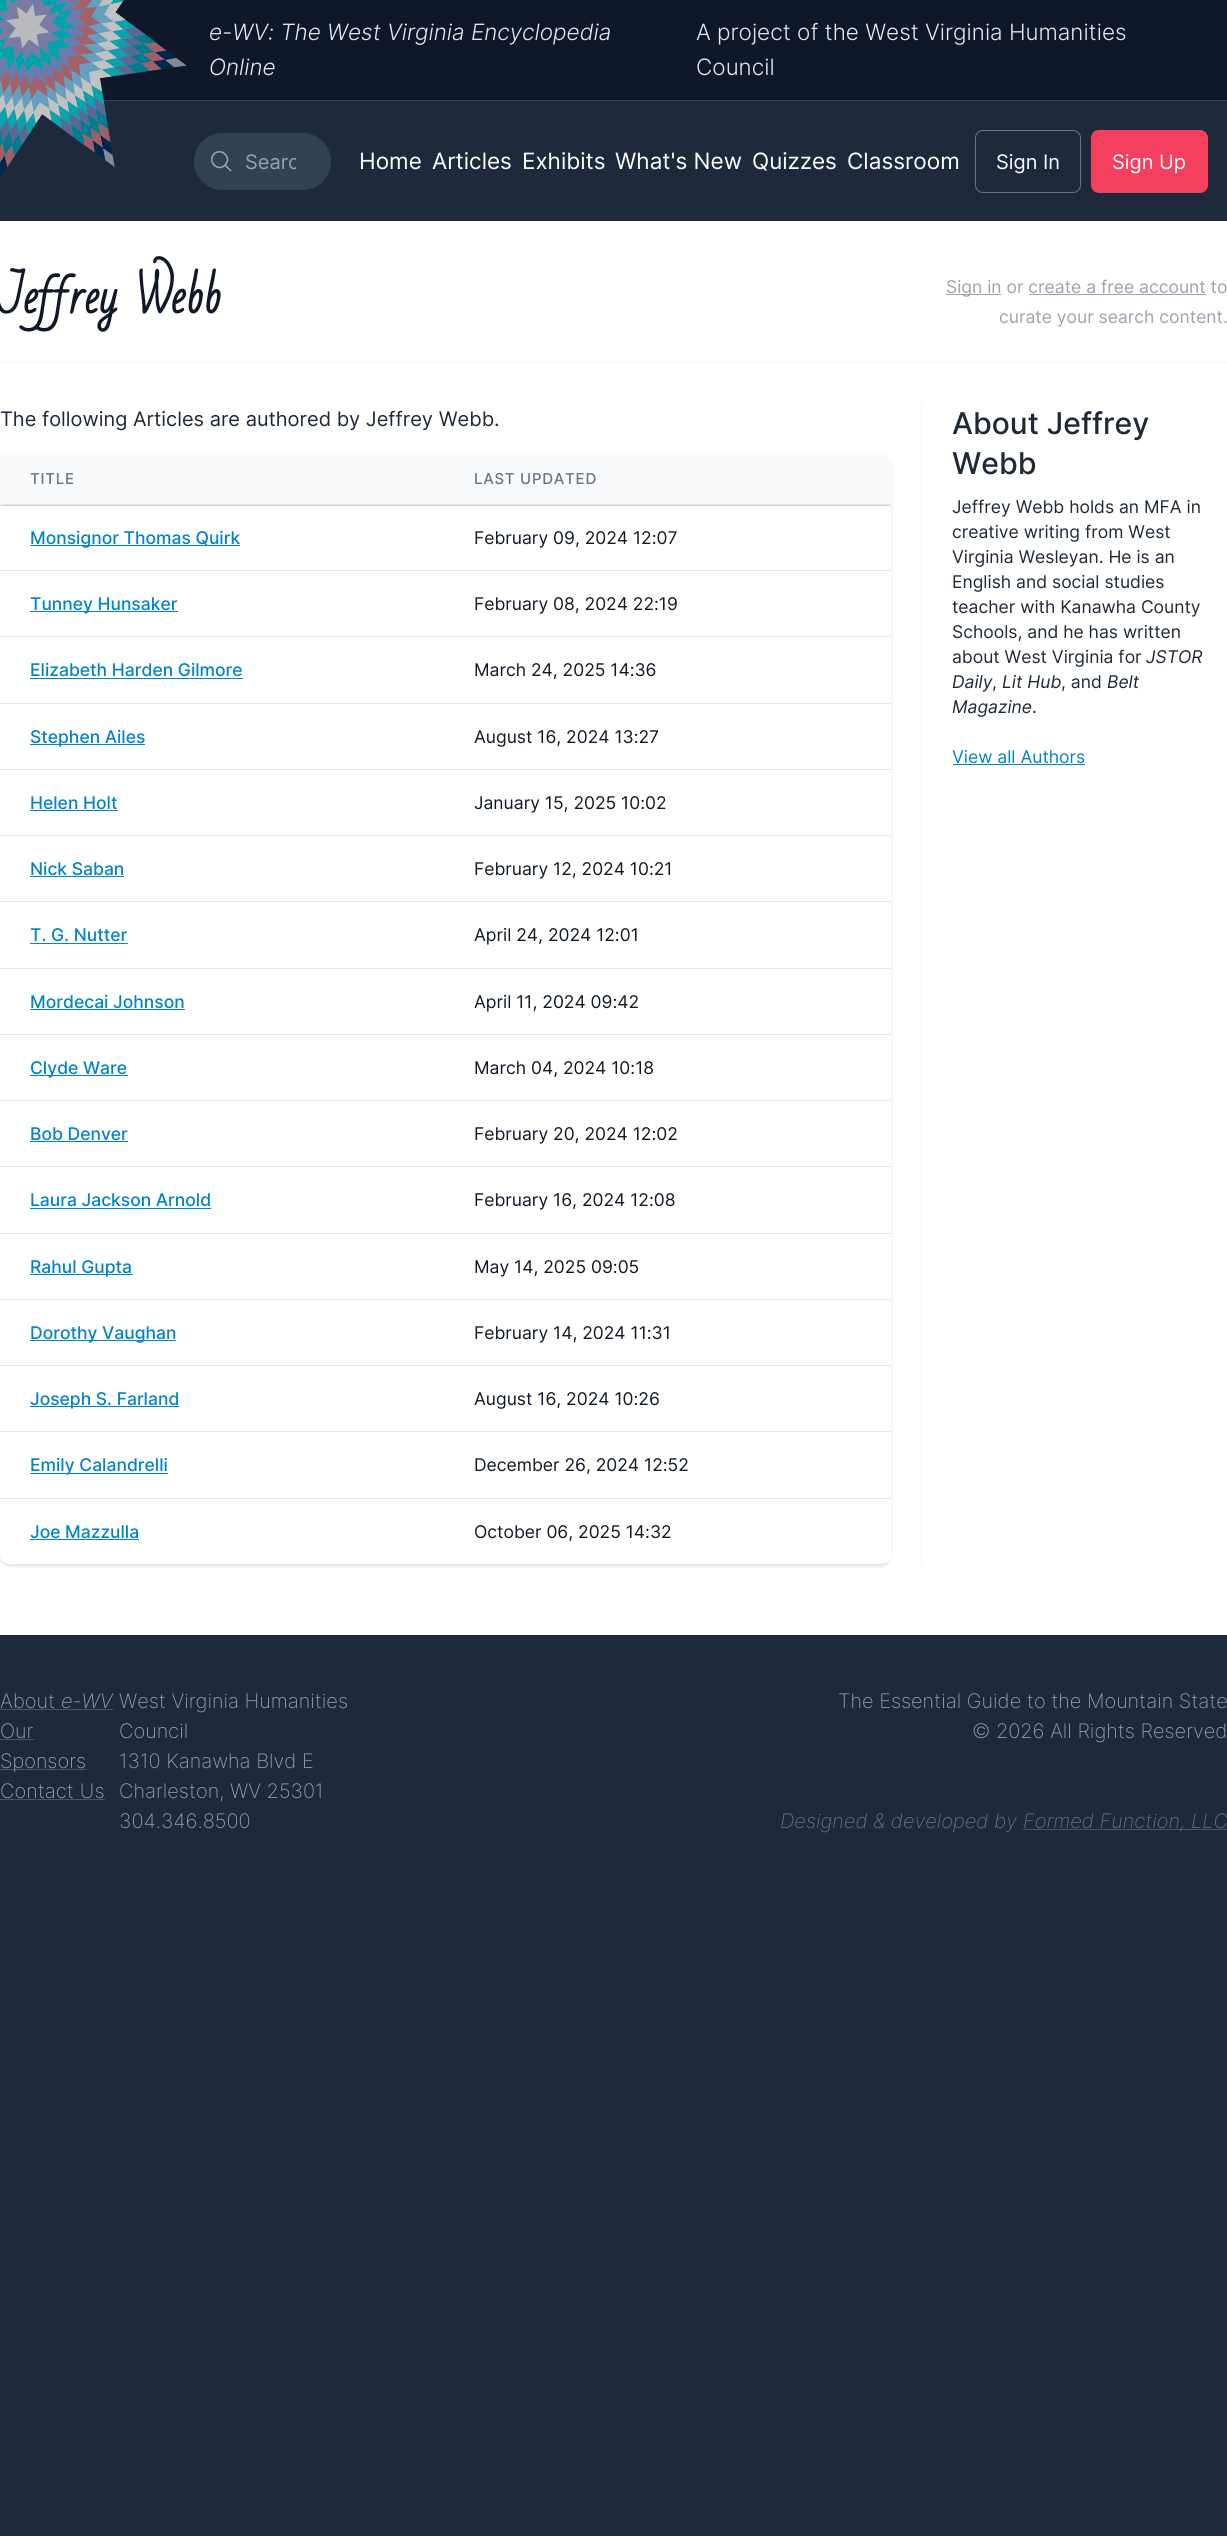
#include <cairo/cairo.h>
#include <math.h>
#include <stddef.h>


static void draw_spaced(cairo_t *cr, double x, double y, const char *s, double letter, double word) {
  cairo_move_to(cr, x, y);
  while (*s) {
    char ch[5] = {0};
    int n = 0;
    do ch[n++] = *s++; while ((*s & 0xC0) == 0x80);
    cairo_show_text(cr, ch);
    cairo_rel_move_to(cr, letter + word * (*ch == ' '), 0);
  }
}

static void rounded_rect(cairo_t *cr, double x, double y, double w, double h, double r) {
  cairo_new_sub_path(cr);
  cairo_arc(cr, x + w - r, y + h - r, r, 0, M_PI / 2);
  cairo_arc(cr, x + r, y + h - r, r, M_PI / 2, M_PI);
  cairo_arc(cr, x + r, y + r, r, M_PI, 1.5 * M_PI);
  cairo_arc(cr, x + w - r, y + r, r, 1.5 * M_PI, 2 * M_PI);
  cairo_close_path(cr);
}

static void draw_shadow(cairo_t *cr, double x, double y, double w, double h, double r, double blur, double alpha) {
  cairo_push_group_with_content(cr, CAIRO_CONTENT_ALPHA);
  cairo_set_operator(cr, CAIRO_OPERATOR_SOURCE);
  for (int i = 15; i >= -15 && fmin(w, h) + blur * i / 3 > 0; i -= 2) {
    double e = blur * i / 6;
    cairo_set_source_rgba(cr, 0, 0, 0, alpha * erfc((i - 1) / 8.5) / 2);
    rounded_rect(cr, x - e, y - e, w + 2 * e, h + 2 * e, fmax(0, fmin(r + e + blur * .6, fmin(w, h) / 2 + e)));
    cairo_fill(cr);
  }
  cairo_pattern_t *soft = cairo_pop_group(cr);
  cairo_mask(cr, soft);
  cairo_pattern_destroy(soft);
}

static void draw_image(cairo_t *cr, const char *path, double x, double y, double w, double h) {
  cairo_surface_t *image = cairo_image_surface_create_from_png(path);
  cairo_save(cr);
  cairo_set_source_surface(cr, image, x, y);
  cairo_rectangle(cr, x, y, w, h);
  cairo_fill(cr);
  cairo_restore(cr);
  cairo_surface_destroy(image);
}

static void draw(cairo_t *cr) {
  cairo_set_source_rgb(cr, 30 / 255.0, 41 / 255.0, 59 / 255.0);
  cairo_paint(cr);
  cairo_set_source_rgb(cr, 15 / 255.0, 23 / 255.0, 42 / 255.0);
  cairo_rectangle(cr, 100, 0, 1127, 100);
  cairo_fill(cr);
  cairo_set_source_rgb(cr, 51 / 255.0, 65 / 255.0, 85 / 255.0);
  cairo_rectangle(cr, 103, 100, 1124, 1);
  cairo_fill(cr);
  draw_image(cr, "images/1.png", 0, 0, 187, 178);
  rounded_rect(cr, 194.5, 133.5, 136, 56, 28);
  cairo_fill_preserve(cr);
  cairo_set_line_width(cr, 1);
  cairo_stroke(cr);
  cairo_new_path(cr);
  cairo_move_to(cr, 230.5, 170.5);
  cairo_line_to(cr, 225, 165);
  cairo_move_to(cr, 225, 165);
  cairo_curve_to(cr, 232.5, 158, 221.5, 147, 214, 154);
  cairo_curve_to(cr, 207, 161.5, 218, 172.5, 225, 165);
  cairo_close_path(cr);
  cairo_set_source_rgb(cr, 148 / 255.0, 163 / 255.0, 184 / 255.0);
  cairo_set_line_width(cr, 1.6);
  cairo_set_line_cap(cr, CAIRO_LINE_CAP_ROUND);
  cairo_set_line_join(cr, CAIRO_LINE_JOIN_ROUND);
  cairo_stroke(cr);
  rounded_rect(cr, 975.5, 130.5, 105, 62, 7.5);
  cairo_set_source_rgb(cr, 100 / 255.0, 116 / 255.0, 139 / 255.0);
  cairo_set_line_width(cr, 1);
  cairo_set_line_cap(cr, CAIRO_LINE_CAP_BUTT);
  cairo_set_line_join(cr, CAIRO_LINE_JOIN_MITER);
  cairo_stroke(cr);
  cairo_set_source_rgb(cr, 244 / 255.0, 63 / 255.0, 94 / 255.0);
  rounded_rect(cr, 1091, 130, 117, 63, 8);
  cairo_fill(cr);
  cairo_set_source_rgb(cr, 1, 1, 1);
  cairo_rectangle(cr, 0, 221, 1227, 1414);
  cairo_fill(cr);
  cairo_set_source_rgb(cr, 249 / 255.0, 250 / 255.0, 251 / 255.0);
  cairo_rectangle(cr, 0, 361, 1227, 3);
  cairo_fill(cr);
  cairo_set_source_rgb(cr, 156 / 255.0, 163 / 255.0, 175 / 255.0);
  cairo_rectangle(cr, 946, 294, 55, 1);
  cairo_fill(cr);
  cairo_rectangle(cr, 1029, 294, 177, 1);
  cairo_fill(cr);
  cairo_set_source_rgb(cr, 0, 0, 0);
  draw_shadow(cr, 1, 456, 889, 1109, 9, 1, 0.1);
  draw_shadow(cr, 0, 455, 891, 1111, 10, 2, 0.1);
  cairo_set_source_rgb(cr, 229 / 255.0, 231 / 255.0, 235 / 255.0);
  cairo_rectangle(cr, 5, 1564, 881, 1);
  cairo_fill(cr);
  cairo_set_source_rgb(cr, 249 / 255.0, 250 / 255.0, 251 / 255.0);
  cairo_new_path(cr);
  cairo_move_to(cr, 0, 464);
  cairo_line_to(cr, 0, 505);
  cairo_line_to(cr, 891, 505);
  cairo_line_to(cr, 891, 462);
  cairo_curve_to(cr, 890, 458, 887, 455, 883, 454);
  cairo_line_to(cr, 8, 454);
  cairo_curve_to(cr, 3, 455, 0, 459, 0, 464);
  cairo_close_path(cr);
  cairo_fill(cr);
  cairo_set_source_rgb(cr, 1, 1, 1);
  cairo_new_path(cr);
  cairo_move_to(cr, 0, 506);
  cairo_line_to(cr, 0, 1555);
  cairo_curve_to(cr, 0, 1560, 4, 1564, 10, 1564);
  cairo_line_to(cr, 881, 1564);
  cairo_curve_to(cr, 886, 1564, 890, 1561, 891, 1557);
  cairo_line_to(cr, 891, 506);
  cairo_close_path(cr);
  cairo_fill(cr);
  cairo_set_source_rgb(cr, 229 / 255.0, 231 / 255.0, 235 / 255.0);
  cairo_rectangle(cr, 0, 504, 891, 1);
  cairo_fill(cr);
  cairo_set_source_rgb(cr, 2 / 255.0, 132 / 255.0, 199 / 255.0);
  cairo_rectangle(cr, 30, 545, 210, 1);
  cairo_fill(cr);
  cairo_set_source_rgb(cr, 229 / 255.0, 231 / 255.0, 235 / 255.0);
  cairo_rectangle(cr, 0, 570, 891, 1);
  cairo_fill(cr);
  cairo_set_source_rgb(cr, 2 / 255.0, 132 / 255.0, 199 / 255.0);
  cairo_rectangle(cr, 30, 611, 148, 1);
  cairo_fill(cr);
  cairo_set_source_rgb(cr, 229 / 255.0, 231 / 255.0, 235 / 255.0);
  cairo_rectangle(cr, 0, 636, 891, 1);
  cairo_fill(cr);
  cairo_set_source_rgb(cr, 2 / 255.0, 132 / 255.0, 199 / 255.0);
  cairo_rectangle(cr, 30, 678, 213, 1);
  cairo_fill(cr);
  cairo_set_source_rgb(cr, 229 / 255.0, 231 / 255.0, 235 / 255.0);
  cairo_rectangle(cr, 0, 703, 891, 1);
  cairo_fill(cr);
  cairo_set_source_rgb(cr, 2 / 255.0, 132 / 255.0, 199 / 255.0);
  cairo_rectangle(cr, 30, 744, 115, 1);
  cairo_fill(cr);
  cairo_set_source_rgb(cr, 229 / 255.0, 231 / 255.0, 235 / 255.0);
  cairo_rectangle(cr, 0, 769, 891, 1);
  cairo_fill(cr);
  cairo_set_source_rgb(cr, 2 / 255.0, 132 / 255.0, 199 / 255.0);
  cairo_rectangle(cr, 30, 810, 88, 1);
  cairo_fill(cr);
  cairo_set_source_rgb(cr, 229 / 255.0, 231 / 255.0, 235 / 255.0);
  cairo_rectangle(cr, 0, 835, 891, 1);
  cairo_fill(cr);
  cairo_set_source_rgb(cr, 2 / 255.0, 132 / 255.0, 199 / 255.0);
  cairo_rectangle(cr, 30, 876, 94, 1);
  cairo_fill(cr);
  cairo_set_source_rgb(cr, 229 / 255.0, 231 / 255.0, 235 / 255.0);
  cairo_rectangle(cr, 0, 901, 891, 1);
  cairo_fill(cr);
  cairo_set_source_rgb(cr, 2 / 255.0, 132 / 255.0, 199 / 255.0);
  cairo_rectangle(cr, 30, 943, 98, 1);
  cairo_fill(cr);
  cairo_set_source_rgb(cr, 229 / 255.0, 231 / 255.0, 235 / 255.0);
  cairo_rectangle(cr, 0, 968, 891, 1);
  cairo_fill(cr);
  cairo_set_source_rgb(cr, 2 / 255.0, 132 / 255.0, 199 / 255.0);
  cairo_rectangle(cr, 30, 1009, 155, 1);
  cairo_fill(cr);
  cairo_set_source_rgb(cr, 229 / 255.0, 231 / 255.0, 235 / 255.0);
  cairo_rectangle(cr, 0, 1034, 891, 1);
  cairo_fill(cr);
  cairo_set_source_rgb(cr, 2 / 255.0, 132 / 255.0, 199 / 255.0);
  cairo_rectangle(cr, 30, 1075, 98, 1);
  cairo_fill(cr);
  cairo_set_source_rgb(cr, 229 / 255.0, 231 / 255.0, 235 / 255.0);
  cairo_rectangle(cr, 0, 1100, 891, 1);
  cairo_fill(cr);
  cairo_set_source_rgb(cr, 2 / 255.0, 132 / 255.0, 199 / 255.0);
  cairo_rectangle(cr, 30, 1141, 98, 1);
  cairo_fill(cr);
  cairo_set_source_rgb(cr, 229 / 255.0, 231 / 255.0, 235 / 255.0);
  cairo_rectangle(cr, 0, 1166, 891, 1);
  cairo_fill(cr);
  cairo_set_source_rgb(cr, 2 / 255.0, 132 / 255.0, 199 / 255.0);
  cairo_rectangle(cr, 30, 1208, 181, 1);
  cairo_fill(cr);
  cairo_set_source_rgb(cr, 229 / 255.0, 231 / 255.0, 235 / 255.0);
  cairo_rectangle(cr, 0, 1233, 891, 1);
  cairo_fill(cr);
  cairo_set_source_rgb(cr, 2 / 255.0, 132 / 255.0, 199 / 255.0);
  cairo_rectangle(cr, 30, 1274, 103, 1);
  cairo_fill(cr);
  cairo_set_source_rgb(cr, 229 / 255.0, 231 / 255.0, 235 / 255.0);
  cairo_rectangle(cr, 0, 1299, 891, 1);
  cairo_fill(cr);
  cairo_set_source_rgb(cr, 2 / 255.0, 132 / 255.0, 199 / 255.0);
  cairo_rectangle(cr, 30, 1340, 146, 1);
  cairo_fill(cr);
  cairo_set_source_rgb(cr, 229 / 255.0, 231 / 255.0, 235 / 255.0);
  cairo_rectangle(cr, 0, 1365, 891, 1);
  cairo_fill(cr);
  cairo_set_source_rgb(cr, 2 / 255.0, 132 / 255.0, 199 / 255.0);
  cairo_rectangle(cr, 30, 1406, 149, 1);
  cairo_fill(cr);
  cairo_set_source_rgb(cr, 229 / 255.0, 231 / 255.0, 235 / 255.0);
  cairo_rectangle(cr, 0, 1431, 891, 1);
  cairo_fill(cr);
  cairo_set_source_rgb(cr, 2 / 255.0, 132 / 255.0, 199 / 255.0);
  cairo_rectangle(cr, 30, 1473, 138, 1);
  cairo_fill(cr);
  cairo_set_source_rgb(cr, 229 / 255.0, 231 / 255.0, 235 / 255.0);
  cairo_rectangle(cr, 0, 1498, 891, 1);
  cairo_fill(cr);
  cairo_set_source_rgb(cr, 2 / 255.0, 132 / 255.0, 199 / 255.0);
  cairo_rectangle(cr, 30, 1539, 109, 1);
  cairo_fill(cr);
  cairo_set_source_rgb(cr, 243 / 255.0, 244 / 255.0, 246 / 255.0);
  cairo_rectangle(cr, 921, 404, 1, 1161);
  cairo_fill(cr);
  cairo_set_source_rgb(cr, 2 / 255.0, 132 / 255.0, 199 / 255.0);
  cairo_rectangle(cr, 953, 764, 132, 1);
  cairo_fill(cr);
  cairo_set_source_rgb(cr, 71 / 255.0, 85 / 255.0, 105 / 255.0);
  cairo_rectangle(cr, 0, 1709, 113, 1);
  cairo_fill(cr);
  cairo_rectangle(cr, 0, 1739, 34, 1);
  cairo_fill(cr);
  cairo_rectangle(cr, 0, 1769, 86, 1);
  cairo_fill(cr);
  cairo_rectangle(cr, 0, 1799, 105, 1);
  cairo_fill(cr);
  cairo_rectangle(cr, 1023, 1829, 204, 1);
  cairo_fill(cr);
  cairo_select_font_face(cr, "Inter Light", CAIRO_FONT_SLANT_ITALIC, CAIRO_FONT_WEIGHT_NORMAL);
  cairo_set_font_size(cr, 22.5);
  cairo_set_source_rgb(cr, 229 / 255.0, 231 / 255.0, 235 / 255.0);
  cairo_move_to(cr, 209, 40);
  cairo_show_text(cr, "e-WV: The West Virginia Encyclopedia");
  cairo_move_to(cr, 209, 75);
  cairo_show_text(cr, "Online");
  cairo_select_font_face(cr, "Inter Light", CAIRO_FONT_SLANT_NORMAL, CAIRO_FONT_WEIGHT_NORMAL);
  cairo_move_to(cr, 696, 40);
  cairo_show_text(cr, "A project of the West Virginia Humanities");
  cairo_move_to(cr, 696, 75);
  cairo_show_text(cr, "Council");
  cairo_save(cr);
  cairo_rectangle(cr, 245, 149, 51, 25);
  cairo_clip(cr);
  cairo_select_font_face(cr, "Inter", CAIRO_FONT_SLANT_NORMAL, CAIRO_FONT_WEIGHT_NORMAL);
  cairo_set_font_size(cr, 20);
  cairo_set_source_rgb(cr, 148 / 255.0, 163 / 255.0, 184 / 255.0);
  cairo_move_to(cr, 245, 169);
  cairo_show_text(cr, "Searc");
  cairo_restore(cr);
  cairo_select_font_face(cr, "Inter", CAIRO_FONT_SLANT_NORMAL, CAIRO_FONT_WEIGHT_NORMAL);
  cairo_set_source_rgb(cr, 1, 1, 1);
  cairo_move_to(cr, 359, 169);
  cairo_show_text(cr, "Home");
  cairo_move_to(cr, 432, 169);
  cairo_show_text(cr, "Articles");
  cairo_move_to(cr, 522, 169);
  cairo_show_text(cr, "Exhibits");
  cairo_move_to(cr, 615, 169);
  cairo_show_text(cr, "What's New");
  cairo_move_to(cr, 752, 169);
  cairo_show_text(cr, "Quizzes");
  cairo_move_to(cr, 847, 169);
  cairo_show_text(cr, "Classroom");
  cairo_set_font_size(cr, 20);
  cairo_move_to(cr, 996, 169);
  cairo_show_text(cr, "Sign In");
  cairo_move_to(cr, 1112, 169);
  cairo_show_text(cr, "Sign Up");
  cairo_select_font_face(cr, "Bad Script", CAIRO_FONT_SLANT_NORMAL, CAIRO_FONT_WEIGHT_BOLD);
  cairo_set_font_size(cr, 45);
  cairo_set_source_rgb(cr, 17 / 255.0, 24 / 255.0, 39 / 255.0);
  cairo_move_to(cr, 0, 313);
  cairo_show_text(cr, "Jeffrey Webb");
  cairo_select_font_face(cr, "Inter", CAIRO_FONT_SLANT_NORMAL, CAIRO_FONT_WEIGHT_NORMAL);
  cairo_set_font_size(cr, 17.5);
  cairo_set_source_rgb(cr, 156 / 255.0, 163 / 255.0, 175 / 255.0);
  cairo_move_to(cr, 946, 293);
  cairo_show_text(cr, "Sign in or create a free account to");
  cairo_move_to(cr, 999, 323);
  cairo_show_text(cr, "curate your search content.");
  cairo_set_font_size(cr, 20);
  cairo_set_source_rgb(cr, 31 / 255.0, 41 / 255.0, 55 / 255.0);
  cairo_move_to(cr, 0, 426);
  cairo_show_text(cr, "The following Articles are authored by Jeffrey Webb.");
  cairo_select_font_face(cr, "Inter Medium", CAIRO_FONT_SLANT_NORMAL, CAIRO_FONT_WEIGHT_NORMAL);
  cairo_set_font_size(cr, 15);
  cairo_set_source_rgb(cr, 107 / 255.0, 114 / 255.0, 128 / 255.0);
  draw_spaced(cr, 30, 484, "TITLE", 0.75, 0);
  draw_spaced(cr, 474, 484, "LAST UPDATED", 0.75, 0);
  cairo_set_font_size(cr, 17.5);
  cairo_set_source_rgb(cr, 2 / 255.0, 132 / 255.0, 199 / 255.0);
  cairo_move_to(cr, 30, 544);
  cairo_show_text(cr, "Monsignor Thomas Quirk");
  cairo_select_font_face(cr, "Inter", CAIRO_FONT_SLANT_NORMAL, CAIRO_FONT_WEIGHT_NORMAL);
  cairo_set_source_rgb(cr, 17 / 255.0, 24 / 255.0, 39 / 255.0);
  cairo_move_to(cr, 474, 544);
  cairo_show_text(cr, "February 09, 2024 12:07");
  cairo_select_font_face(cr, "Inter Medium", CAIRO_FONT_SLANT_NORMAL, CAIRO_FONT_WEIGHT_NORMAL);
  cairo_set_source_rgb(cr, 2 / 255.0, 132 / 255.0, 199 / 255.0);
  cairo_move_to(cr, 30, 610);
  cairo_show_text(cr, "Tunney Hunsaker");
  cairo_select_font_face(cr, "Inter", CAIRO_FONT_SLANT_NORMAL, CAIRO_FONT_WEIGHT_NORMAL);
  cairo_set_source_rgb(cr, 17 / 255.0, 24 / 255.0, 39 / 255.0);
  cairo_move_to(cr, 474, 610);
  cairo_show_text(cr, "February 08, 2024 22:19");
  cairo_select_font_face(cr, "Inter Medium", CAIRO_FONT_SLANT_NORMAL, CAIRO_FONT_WEIGHT_NORMAL);
  cairo_set_source_rgb(cr, 2 / 255.0, 132 / 255.0, 199 / 255.0);
  cairo_move_to(cr, 30, 676);
  cairo_show_text(cr, "Elizabeth Harden Gilmore");
  cairo_select_font_face(cr, "Inter", CAIRO_FONT_SLANT_NORMAL, CAIRO_FONT_WEIGHT_NORMAL);
  cairo_set_source_rgb(cr, 17 / 255.0, 24 / 255.0, 39 / 255.0);
  cairo_move_to(cr, 474, 676);
  cairo_show_text(cr, "March 24, 2025 14:36");
  cairo_select_font_face(cr, "Inter Medium", CAIRO_FONT_SLANT_NORMAL, CAIRO_FONT_WEIGHT_NORMAL);
  cairo_set_source_rgb(cr, 2 / 255.0, 132 / 255.0, 199 / 255.0);
  cairo_move_to(cr, 30, 743);
  cairo_show_text(cr, "Stephen Ailes");
  cairo_select_font_face(cr, "Inter", CAIRO_FONT_SLANT_NORMAL, CAIRO_FONT_WEIGHT_NORMAL);
  cairo_set_source_rgb(cr, 17 / 255.0, 24 / 255.0, 39 / 255.0);
  cairo_move_to(cr, 474, 743);
  cairo_show_text(cr, "August 16, 2024 13:27");
  cairo_select_font_face(cr, "Inter Medium", CAIRO_FONT_SLANT_NORMAL, CAIRO_FONT_WEIGHT_NORMAL);
  cairo_set_source_rgb(cr, 2 / 255.0, 132 / 255.0, 199 / 255.0);
  cairo_move_to(cr, 30, 809);
  cairo_show_text(cr, "Helen Holt");
  cairo_select_font_face(cr, "Inter", CAIRO_FONT_SLANT_NORMAL, CAIRO_FONT_WEIGHT_NORMAL);
  cairo_set_source_rgb(cr, 17 / 255.0, 24 / 255.0, 39 / 255.0);
  cairo_move_to(cr, 474, 809);
  cairo_show_text(cr, "January 15, 2025 10:02");
  cairo_select_font_face(cr, "Inter Medium", CAIRO_FONT_SLANT_NORMAL, CAIRO_FONT_WEIGHT_NORMAL);
  cairo_set_source_rgb(cr, 2 / 255.0, 132 / 255.0, 199 / 255.0);
  cairo_move_to(cr, 30, 875);
  cairo_show_text(cr, "Nick Saban");
  cairo_select_font_face(cr, "Inter", CAIRO_FONT_SLANT_NORMAL, CAIRO_FONT_WEIGHT_NORMAL);
  cairo_set_source_rgb(cr, 17 / 255.0, 24 / 255.0, 39 / 255.0);
  cairo_move_to(cr, 474, 875);
  cairo_show_text(cr, "February 12, 2024 10:21");
  cairo_select_font_face(cr, "Inter Medium", CAIRO_FONT_SLANT_NORMAL, CAIRO_FONT_WEIGHT_NORMAL);
  cairo_set_source_rgb(cr, 2 / 255.0, 132 / 255.0, 199 / 255.0);
  cairo_move_to(cr, 30, 941);
  cairo_show_text(cr, "T. G. Nutter");
  cairo_select_font_face(cr, "Inter", CAIRO_FONT_SLANT_NORMAL, CAIRO_FONT_WEIGHT_NORMAL);
  cairo_set_source_rgb(cr, 17 / 255.0, 24 / 255.0, 39 / 255.0);
  cairo_move_to(cr, 474, 941);
  cairo_show_text(cr, "April 24, 2024 12:01");
  cairo_select_font_face(cr, "Inter Medium", CAIRO_FONT_SLANT_NORMAL, CAIRO_FONT_WEIGHT_NORMAL);
  cairo_set_source_rgb(cr, 2 / 255.0, 132 / 255.0, 199 / 255.0);
  cairo_move_to(cr, 30, 1008);
  cairo_show_text(cr, "Mordecai Johnson");
  cairo_select_font_face(cr, "Inter", CAIRO_FONT_SLANT_NORMAL, CAIRO_FONT_WEIGHT_NORMAL);
  cairo_set_source_rgb(cr, 17 / 255.0, 24 / 255.0, 39 / 255.0);
  cairo_move_to(cr, 474, 1008);
  cairo_show_text(cr, "April 11, 2024 09:42");
  cairo_select_font_face(cr, "Inter Medium", CAIRO_FONT_SLANT_NORMAL, CAIRO_FONT_WEIGHT_NORMAL);
  cairo_set_source_rgb(cr, 2 / 255.0, 132 / 255.0, 199 / 255.0);
  cairo_move_to(cr, 30, 1074);
  cairo_show_text(cr, "Clyde Ware");
  cairo_select_font_face(cr, "Inter", CAIRO_FONT_SLANT_NORMAL, CAIRO_FONT_WEIGHT_NORMAL);
  cairo_set_source_rgb(cr, 17 / 255.0, 24 / 255.0, 39 / 255.0);
  cairo_move_to(cr, 474, 1074);
  cairo_show_text(cr, "March 04, 2024 10:18");
  cairo_select_font_face(cr, "Inter Medium", CAIRO_FONT_SLANT_NORMAL, CAIRO_FONT_WEIGHT_NORMAL);
  cairo_set_source_rgb(cr, 2 / 255.0, 132 / 255.0, 199 / 255.0);
  cairo_move_to(cr, 30, 1140);
  cairo_show_text(cr, "Bob Denver");
  cairo_select_font_face(cr, "Inter", CAIRO_FONT_SLANT_NORMAL, CAIRO_FONT_WEIGHT_NORMAL);
  cairo_set_source_rgb(cr, 17 / 255.0, 24 / 255.0, 39 / 255.0);
  cairo_move_to(cr, 474, 1140);
  cairo_show_text(cr, "February 20, 2024 12:02");
  cairo_select_font_face(cr, "Inter Medium", CAIRO_FONT_SLANT_NORMAL, CAIRO_FONT_WEIGHT_NORMAL);
  cairo_set_source_rgb(cr, 2 / 255.0, 132 / 255.0, 199 / 255.0);
  cairo_move_to(cr, 30, 1206);
  cairo_show_text(cr, "Laura Jackson Arnold");
  cairo_select_font_face(cr, "Inter", CAIRO_FONT_SLANT_NORMAL, CAIRO_FONT_WEIGHT_NORMAL);
  cairo_set_source_rgb(cr, 17 / 255.0, 24 / 255.0, 39 / 255.0);
  cairo_move_to(cr, 474, 1206);
  cairo_show_text(cr, "February 16, 2024 12:08");
  cairo_select_font_face(cr, "Inter Medium", CAIRO_FONT_SLANT_NORMAL, CAIRO_FONT_WEIGHT_NORMAL);
  cairo_set_source_rgb(cr, 2 / 255.0, 132 / 255.0, 199 / 255.0);
  cairo_move_to(cr, 30, 1273);
  cairo_show_text(cr, "Rahul Gupta");
  cairo_select_font_face(cr, "Inter", CAIRO_FONT_SLANT_NORMAL, CAIRO_FONT_WEIGHT_NORMAL);
  cairo_set_source_rgb(cr, 17 / 255.0, 24 / 255.0, 39 / 255.0);
  cairo_move_to(cr, 474, 1273);
  cairo_show_text(cr, "May 14, 2025 09:05");
  cairo_select_font_face(cr, "Inter Medium", CAIRO_FONT_SLANT_NORMAL, CAIRO_FONT_WEIGHT_NORMAL);
  cairo_set_source_rgb(cr, 2 / 255.0, 132 / 255.0, 199 / 255.0);
  cairo_move_to(cr, 30, 1339);
  cairo_show_text(cr, "Dorothy Vaughan");
  cairo_select_font_face(cr, "Inter", CAIRO_FONT_SLANT_NORMAL, CAIRO_FONT_WEIGHT_NORMAL);
  cairo_set_source_rgb(cr, 17 / 255.0, 24 / 255.0, 39 / 255.0);
  cairo_move_to(cr, 474, 1339);
  cairo_show_text(cr, "February 14, 2024 11:31");
  cairo_select_font_face(cr, "Inter Medium", CAIRO_FONT_SLANT_NORMAL, CAIRO_FONT_WEIGHT_NORMAL);
  cairo_set_source_rgb(cr, 2 / 255.0, 132 / 255.0, 199 / 255.0);
  cairo_move_to(cr, 30, 1405);
  cairo_show_text(cr, "Joseph S. Farland");
  cairo_select_font_face(cr, "Inter", CAIRO_FONT_SLANT_NORMAL, CAIRO_FONT_WEIGHT_NORMAL);
  cairo_set_source_rgb(cr, 17 / 255.0, 24 / 255.0, 39 / 255.0);
  cairo_move_to(cr, 474, 1405);
  cairo_show_text(cr, "August 16, 2024 10:26");
  cairo_select_font_face(cr, "Inter Medium", CAIRO_FONT_SLANT_NORMAL, CAIRO_FONT_WEIGHT_NORMAL);
  cairo_set_source_rgb(cr, 2 / 255.0, 132 / 255.0, 199 / 255.0);
  cairo_move_to(cr, 30, 1471);
  cairo_show_text(cr, "Emily Calandrelli");
  cairo_select_font_face(cr, "Inter", CAIRO_FONT_SLANT_NORMAL, CAIRO_FONT_WEIGHT_NORMAL);
  cairo_set_source_rgb(cr, 17 / 255.0, 24 / 255.0, 39 / 255.0);
  cairo_move_to(cr, 474, 1471);
  cairo_show_text(cr, "December 26, 2024 12:52");
  cairo_select_font_face(cr, "Inter Medium", CAIRO_FONT_SLANT_NORMAL, CAIRO_FONT_WEIGHT_NORMAL);
  cairo_set_source_rgb(cr, 2 / 255.0, 132 / 255.0, 199 / 255.0);
  cairo_move_to(cr, 30, 1538);
  cairo_show_text(cr, "Joe Mazzulla");
  cairo_select_font_face(cr, "Inter", CAIRO_FONT_SLANT_NORMAL, CAIRO_FONT_WEIGHT_NORMAL);
  cairo_set_source_rgb(cr, 17 / 255.0, 24 / 255.0, 39 / 255.0);
  cairo_move_to(cr, 474, 1538);
  cairo_show_text(cr, "October 06, 2025 14:32");
  cairo_select_font_face(cr, "Inter Medium", CAIRO_FONT_SLANT_NORMAL, CAIRO_FONT_WEIGHT_NORMAL);
  cairo_set_font_size(cr, 30);
  cairo_set_source_rgb(cr, 31 / 255.0, 41 / 255.0, 55 / 255.0);
  cairo_move_to(cr, 952, 434);
  cairo_show_text(cr, "About Jeffrey");
  cairo_move_to(cr, 952, 474);
  cairo_show_text(cr, "Webb");
  cairo_select_font_face(cr, "Inter", CAIRO_FONT_SLANT_NORMAL, CAIRO_FONT_WEIGHT_NORMAL);
  cairo_set_font_size(cr, 17.5);
  cairo_move_to(cr, 952, 513);
  cairo_show_text(cr, "Jeffrey Webb holds an MFA in");
  cairo_move_to(cr, 952, 538);
  cairo_show_text(cr, "creative writing from West");
  cairo_move_to(cr, 952, 563);
  cairo_show_text(cr, "Virginia Wesleyan. He is an");
  cairo_move_to(cr, 952, 588);
  cairo_show_text(cr, "English and social studies");
  cairo_move_to(cr, 952, 613);
  cairo_show_text(cr, "teacher with Kanawha County");
  cairo_move_to(cr, 952, 638);
  cairo_show_text(cr, "Schools, and he has written");
  cairo_move_to(cr, 952, 663);
  cairo_show_text(cr, "about West Virginia for");
  cairo_select_font_face(cr, "Inter", CAIRO_FONT_SLANT_ITALIC, CAIRO_FONT_WEIGHT_NORMAL);
  cairo_move_to(cr, 1146, 663);
  cairo_show_text(cr, "JSTOR");
  cairo_move_to(cr, 952, 688);
  cairo_show_text(cr, "Daily");
  cairo_select_font_face(cr, "Inter", CAIRO_FONT_SLANT_NORMAL, CAIRO_FONT_WEIGHT_NORMAL);
  cairo_move_to(cr, 992, 688);
  cairo_show_text(cr, ",");
  cairo_select_font_face(cr, "Inter", CAIRO_FONT_SLANT_ITALIC, CAIRO_FONT_WEIGHT_NORMAL);
  cairo_move_to(cr, 1002, 688);
  cairo_show_text(cr, "Lit Hub");
  cairo_select_font_face(cr, "Inter", CAIRO_FONT_SLANT_NORMAL, CAIRO_FONT_WEIGHT_NORMAL);
  cairo_move_to(cr, 1061, 688);
  cairo_show_text(cr, ", and");
  cairo_select_font_face(cr, "Inter", CAIRO_FONT_SLANT_ITALIC, CAIRO_FONT_WEIGHT_NORMAL);
  cairo_move_to(cr, 1107, 688);
  cairo_show_text(cr, "Belt");
  cairo_move_to(cr, 952, 713);
  cairo_show_text(cr, "Magazine");
  cairo_select_font_face(cr, "Inter", CAIRO_FONT_SLANT_NORMAL, CAIRO_FONT_WEIGHT_NORMAL);
  cairo_move_to(cr, 1032, 713);
  cairo_show_text(cr, ".");
  cairo_set_source_rgb(cr, 2 / 255.0, 132 / 255.0, 199 / 255.0);
  cairo_move_to(cr, 952, 763);
  cairo_show_text(cr, "View all Authors");
  cairo_select_font_face(cr, "Inter ExtraLight", CAIRO_FONT_SLANT_NORMAL, CAIRO_FONT_WEIGHT_NORMAL);
  cairo_set_font_size(cr, 20);
  cairo_set_source_rgb(cr, 148 / 255.0, 163 / 255.0, 184 / 255.0);
  cairo_move_to(cr, 0, 1708);
  cairo_show_text(cr, "About");
  cairo_select_font_face(cr, "Inter ExtraLight", CAIRO_FONT_SLANT_ITALIC, CAIRO_FONT_WEIGHT_NORMAL);
  cairo_move_to(cr, 61, 1708);
  cairo_show_text(cr, "e-WV");
  cairo_select_font_face(cr, "Inter ExtraLight", CAIRO_FONT_SLANT_NORMAL, CAIRO_FONT_WEIGHT_NORMAL);
  cairo_move_to(cr, 0, 1738);
  cairo_show_text(cr, "Our");
  cairo_move_to(cr, 0, 1768);
  cairo_show_text(cr, "Sponsors");
  cairo_move_to(cr, 0, 1798);
  cairo_show_text(cr, "Contact Us");
  cairo_move_to(cr, 119, 1708);
  cairo_show_text(cr, "West Virginia Humanities");
  cairo_move_to(cr, 119, 1738);
  cairo_show_text(cr, "Council");
  cairo_move_to(cr, 119, 1768);
  cairo_show_text(cr, "1310 Kanawha Blvd E");
  cairo_move_to(cr, 119, 1798);
  cairo_show_text(cr, "Charleston, WV 25301");
  cairo_move_to(cr, 119, 1828);
  cairo_show_text(cr, "304.346.8500");
  cairo_move_to(cr, 838, 1708);
  cairo_show_text(cr, "The Essential Guide to the Mountain State");
  cairo_move_to(cr, 972, 1738);
  cairo_show_text(cr, "© 2026 All Rights Reserved");
  cairo_select_font_face(cr, "Inter ExtraLight", CAIRO_FONT_SLANT_ITALIC, CAIRO_FONT_WEIGHT_NORMAL);
  cairo_set_source_rgb(cr, 100 / 255.0, 116 / 255.0, 139 / 255.0);
  cairo_move_to(cr, 780, 1828);
  cairo_show_text(cr, "Designed & developed by");
  cairo_move_to(cr, 1023, 1828);
  cairo_show_text(cr, "Formed Function, LLC");
}

int main(void) {
  cairo_surface_t *surface = cairo_image_surface_create(CAIRO_FORMAT_RGB24, 1227, 2536);
  cairo_t *cr = cairo_create(surface);
  cairo_font_options_t *options = cairo_font_options_create();
  cairo_font_options_set_hint_metrics(options, CAIRO_HINT_METRICS_OFF);
  cairo_font_options_set_hint_style(options, CAIRO_HINT_STYLE_NONE);
  cairo_set_font_options(cr, options);
  cairo_set_miter_limit(cr, 4);
  draw(cr);
  cairo_surface_write_to_png(surface, "out.png");
  cairo_font_options_destroy(options);
  cairo_destroy(cr);
  cairo_surface_destroy(surface);
  return 0;
}
